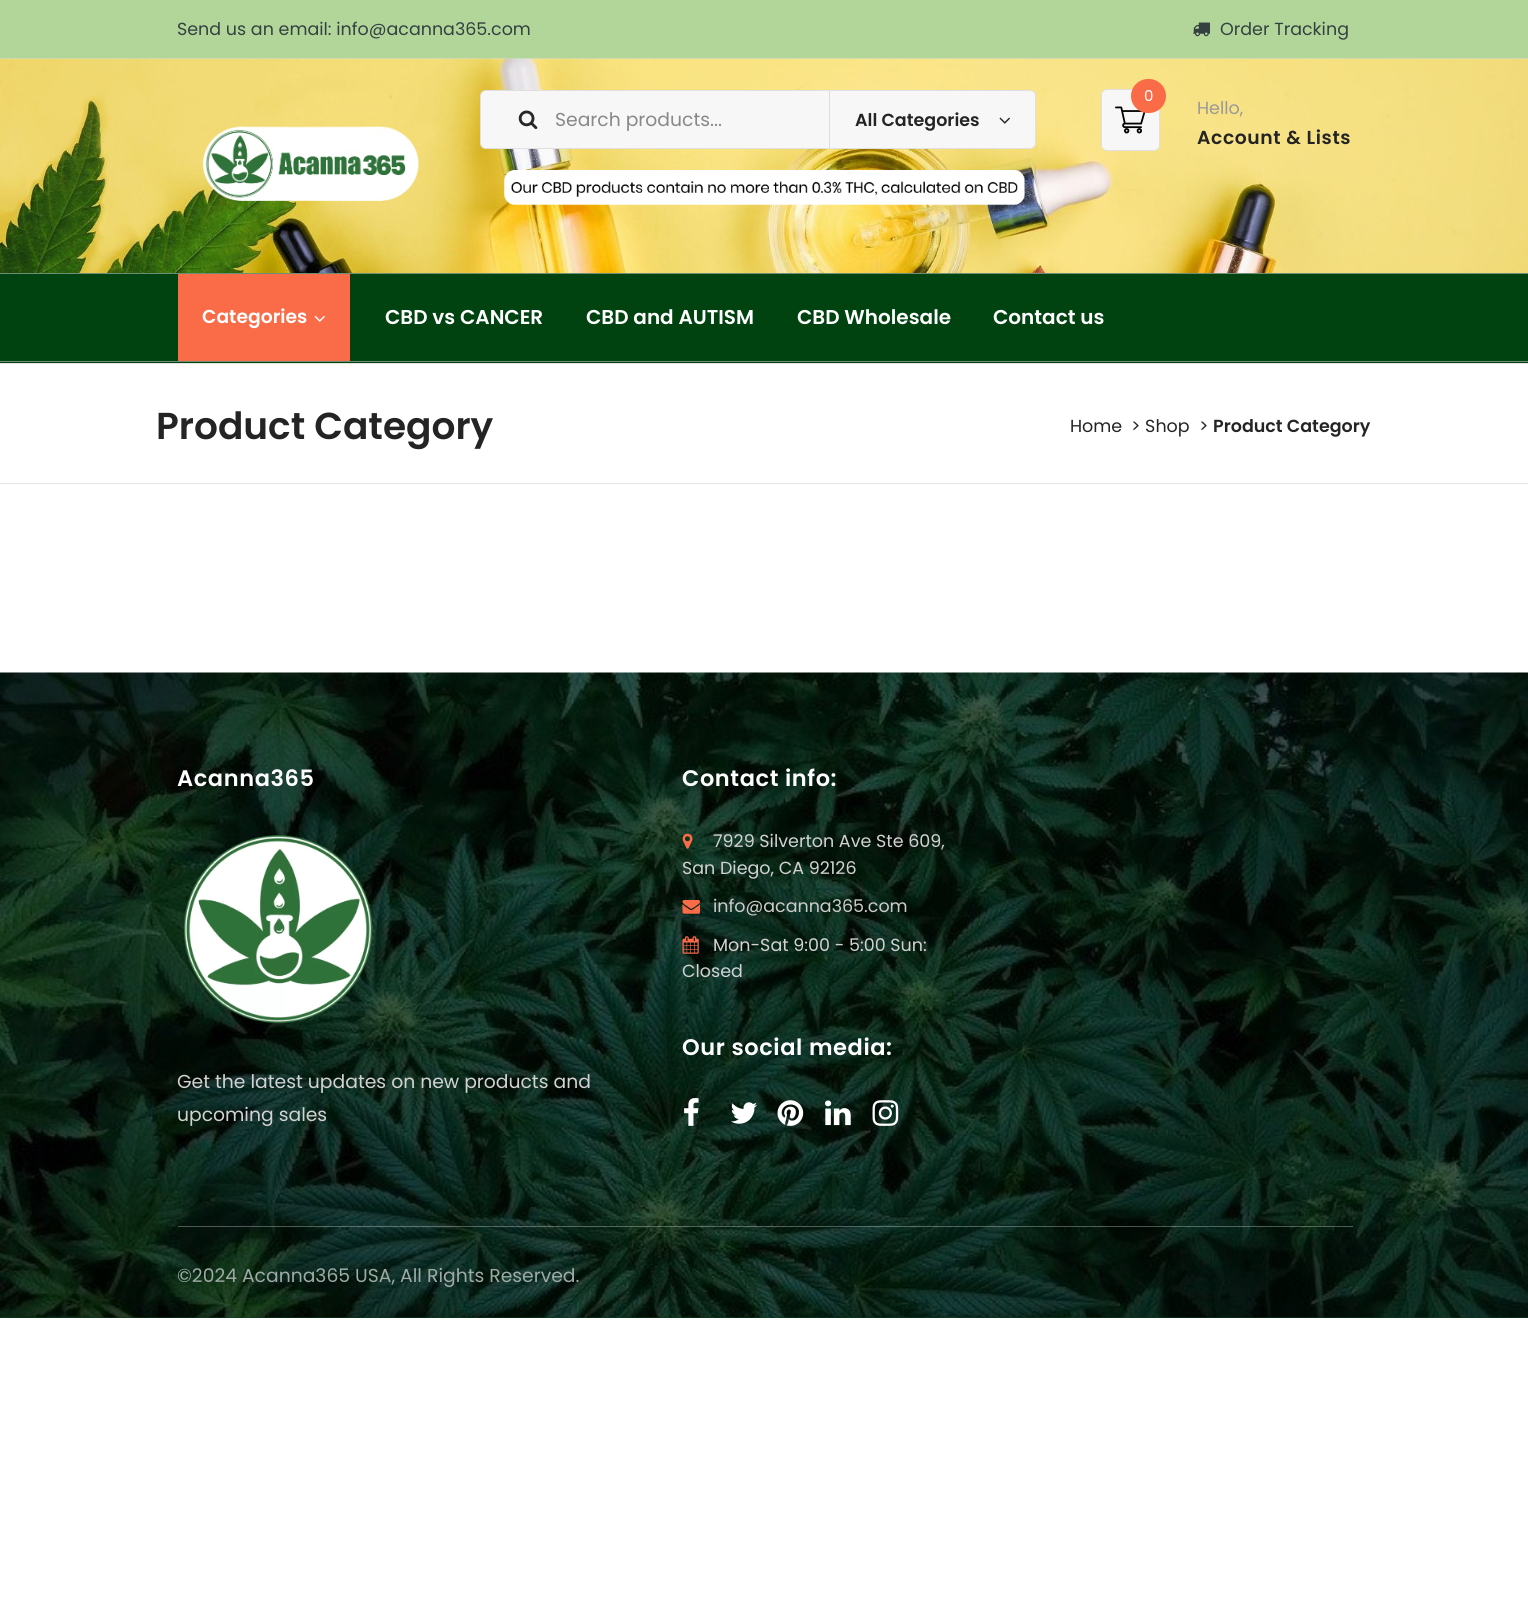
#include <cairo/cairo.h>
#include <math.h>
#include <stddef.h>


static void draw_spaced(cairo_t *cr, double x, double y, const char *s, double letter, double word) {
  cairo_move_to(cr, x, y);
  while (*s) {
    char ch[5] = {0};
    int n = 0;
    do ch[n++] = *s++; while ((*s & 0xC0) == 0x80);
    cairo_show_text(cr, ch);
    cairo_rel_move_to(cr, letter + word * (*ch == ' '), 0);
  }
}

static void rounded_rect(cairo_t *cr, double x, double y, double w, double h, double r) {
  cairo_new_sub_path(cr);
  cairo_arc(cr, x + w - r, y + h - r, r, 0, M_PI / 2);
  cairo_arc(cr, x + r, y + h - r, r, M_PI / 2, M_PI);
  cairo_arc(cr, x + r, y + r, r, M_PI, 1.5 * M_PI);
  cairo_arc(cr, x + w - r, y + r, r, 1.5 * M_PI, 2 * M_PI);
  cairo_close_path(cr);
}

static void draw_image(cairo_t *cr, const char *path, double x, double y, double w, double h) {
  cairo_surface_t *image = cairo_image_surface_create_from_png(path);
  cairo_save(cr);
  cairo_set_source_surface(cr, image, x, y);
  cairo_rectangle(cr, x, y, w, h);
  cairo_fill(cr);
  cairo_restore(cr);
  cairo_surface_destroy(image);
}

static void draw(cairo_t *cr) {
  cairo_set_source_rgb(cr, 1, 1, 1);
  cairo_paint(cr);
  cairo_set_source_rgb(cr, 178 / 255.0, 214 / 255.0, 154 / 255.0);
  cairo_rectangle(cr, 0, 0, 1528, 58);
  cairo_fill(cr);
  cairo_set_source_rgb(cr, 199 / 255.0, 217 / 255.0, 187 / 255.0);
  cairo_rectangle(cr, 0, 58, 1528, 1);
  cairo_fill(cr);
  draw_image(cr, "images/1.png", 1193, 22, 17, 15);
  draw_image(cr, "images/2.png", 0, 58, 1528, 215);
  cairo_set_source_rgb(cr, 247 / 255.0, 247 / 255.0, 247 / 255.0);
  rounded_rect(cr, 480.5, 90.5, 555, 58, 5.5);
  cairo_fill_preserve(cr);
  cairo_set_source_rgb(cr, 224 / 255.0, 224 / 255.0, 224 / 255.0);
  cairo_set_line_width(cr, 1);
  cairo_stroke(cr);
  draw_image(cr, "images/3.png", 518, 110, 20, 20);
  cairo_set_source_rgb(cr, 221 / 255.0, 221 / 255.0, 221 / 255.0);
  cairo_rectangle(cr, 829, 91, 1, 57);
  cairo_fill(cr);
  draw_image(cr, "images/4.png", 999, 117, 11, 7);
  cairo_set_source_rgb(cr, 247 / 255.0, 247 / 255.0, 247 / 255.0);
  rounded_rect(cr, 1101.5, 89.5, 58, 61, 5.5);
  cairo_fill_preserve(cr);
  cairo_set_source_rgb(cr, 224 / 255.0, 224 / 255.0, 224 / 255.0);
  cairo_stroke(cr);
  draw_image(cr, "images/5.png", 1115, 106, 31, 28);
  cairo_set_source_rgb(cr, 250 / 255.0, 108 / 255.0, 72 / 255.0);
  rounded_rect(cr, 1131, 79, 35, 34, 17);
  cairo_fill(cr);
  draw_image(cr, "images/6.png", 202, 126, 217, 76);
  cairo_set_source_rgb(cr, 0, 66 / 255.0, 16 / 255.0);
  cairo_rectangle(cr, 0, 274, 1528, 89);
  cairo_fill(cr);
  cairo_set_source_rgb(cr, 108 / 255.0, 142 / 255.0, 116 / 255.0);
  cairo_rectangle(cr, 0, 273, 1528, 1);
  cairo_fill(cr);
  cairo_rectangle(cr, 0, 361, 1528, 1);
  cairo_fill(cr);
  cairo_set_source_rgb(cr, 250 / 255.0, 108 / 255.0, 71 / 255.0);
  cairo_rectangle(cr, 178, 274, 172, 87);
  cairo_fill(cr);
  draw_image(cr, "images/7.png", 314, 315, 11, 7);
  cairo_set_source_rgb(cr, 230 / 255.0, 230 / 255.0, 230 / 255.0);
  cairo_rectangle(cr, 0, 363, 1528, 1);
  cairo_fill(cr);
  cairo_rectangle(cr, 0, 483, 1528, 1);
  cairo_fill(cr);
  cairo_set_source_rgb(cr, 15 / 255.0, 61 / 255.0, 23 / 255.0);
  cairo_rectangle(cr, 0, 1317, 1528, 1);
  cairo_fill(cr);
  draw_image(cr, "images/8.png", 0, 672, 1528, 646);
  draw_image(cr, "images/9.png", 183, 835, 190, 189);
  draw_image(cr, "images/10.png", 682, 833, 11, 16);
  draw_image(cr, "images/11.png", 682, 900, 18, 14);
  draw_image(cr, "images/12.png", 682, 936, 17, 18);
  draw_image(cr, "images/13.png", 684, 1098, 15, 28);
  draw_image(cr, "images/14.png", 731, 1102, 26, 22);
  draw_image(cr, "images/15.png", 777, 1100, 27, 26);
  draw_image(cr, "images/16.png", 825, 1100, 26, 26);
  draw_image(cr, "images/17.png", 872, 1100, 27, 26);
  cairo_set_source_rgba(cr, 235 / 255.0, 235 / 255.0, 235 / 255.0, 0.33);
  cairo_rectangle(cr, 178, 1226, 1175, 1);
  cairo_fill(cr);
  cairo_select_font_face(cr, "Poppins", CAIRO_FONT_SLANT_NORMAL, CAIRO_FONT_WEIGHT_NORMAL);
  cairo_set_font_size(cr, 17.5);
  cairo_set_source_rgb(cr, 51 / 255.0, 65 / 255.0, 65 / 255.0);
  cairo_move_to(cr, 177, 35);
  cairo_show_text(cr, "Send us an email: info@acanna365.com");
  cairo_move_to(cr, 1220, 35);
  cairo_show_text(cr, "Order Tracking");
  cairo_set_font_size(cr, 18.75);
  cairo_set_source_rgb(cr, 136 / 255.0, 136 / 255.0, 136 / 255.0);
  cairo_move_to(cr, 555, 126);
  cairo_show_text(cr, "Search products...");
  cairo_select_font_face(cr, "Poppins SemiBold", CAIRO_FONT_SLANT_NORMAL, CAIRO_FONT_WEIGHT_NORMAL);
  cairo_set_font_size(cr, 17.5);
  cairo_set_source_rgb(cr, 36 / 255.0, 36 / 255.0, 36 / 255.0);
  cairo_move_to(cr, 855, 126);
  cairo_show_text(cr, "All Categories");
  cairo_select_font_face(cr, "Poppins", CAIRO_FONT_SLANT_NORMAL, CAIRO_FONT_WEIGHT_NORMAL);
  cairo_set_font_size(cr, 15);
  cairo_set_source_rgb(cr, 1, 1, 1);
  cairo_move_to(cr, 1144, 101);
  cairo_show_text(cr, "0");
  cairo_set_font_size(cr, 17.5);
  cairo_set_source_rgb(cr, 153 / 255.0, 153 / 255.0, 153 / 255.0);
  cairo_move_to(cr, 1197, 114);
  cairo_show_text(cr, "Hello,");
  cairo_select_font_face(cr, "Poppins SemiBold", CAIRO_FONT_SLANT_NORMAL, CAIRO_FONT_WEIGHT_NORMAL);
  cairo_set_font_size(cr, 18.75);
  cairo_set_source_rgb(cr, 36 / 255.0, 36 / 255.0, 36 / 255.0);
  draw_spaced(cr, 1197, 144, "Account & Lists", 0.6, 0);
  cairo_set_source_rgb(cr, 1, 1, 1);
  cairo_move_to(cr, 202, 323);
  cairo_show_text(cr, "Categories");
  cairo_set_font_size(cr, 20);
  cairo_move_to(cr, 385, 324);
  cairo_show_text(cr, "CBD vs CANCER");
  cairo_move_to(cr, 586, 324);
  cairo_show_text(cr, "CBD and AUTISM");
  cairo_move_to(cr, 797, 324);
  cairo_show_text(cr, "CBD Wholesale");
  cairo_move_to(cr, 993, 324);
  cairo_show_text(cr, "Contact us");
  cairo_set_font_size(cr, 37.5);
  cairo_set_source_rgb(cr, 36 / 255.0, 36 / 255.0, 36 / 255.0);
  cairo_move_to(cr, 156, 439);
  cairo_show_text(cr, "Product Category");
  cairo_select_font_face(cr, "Poppins", CAIRO_FONT_SLANT_NORMAL, CAIRO_FONT_WEIGHT_NORMAL);
  cairo_set_font_size(cr, 17.5);
  cairo_move_to(cr, 1070, 432);
  cairo_show_text(cr, "Home");
  cairo_move_to(cr, 1131, 432);
  cairo_show_text(cr, "> Shop");
  cairo_move_to(cr, 1199, 432);
  cairo_show_text(cr, ">");
  cairo_select_font_face(cr, "Poppins SemiBold", CAIRO_FONT_SLANT_NORMAL, CAIRO_FONT_WEIGHT_NORMAL);
  cairo_move_to(cr, 1213, 432);
  cairo_show_text(cr, "Product Category");
  cairo_set_font_size(cr, 22.5);
  cairo_set_source_rgb(cr, 1, 1, 1);
  draw_spaced(cr, 177, 786, "Acanna365", 0.6, 0);
  cairo_select_font_face(cr, "Poppins", CAIRO_FONT_SLANT_NORMAL, CAIRO_FONT_WEIGHT_NORMAL);
  cairo_set_font_size(cr, 18.75);
  cairo_set_source_rgb(cr, 210 / 255.0, 210 / 255.0, 211 / 255.0);
  cairo_move_to(cr, 177, 1088);
  cairo_show_text(cr, "Get the latest updates on new products and");
  cairo_move_to(cr, 177, 1121);
  cairo_show_text(cr, "upcoming sales");
  cairo_select_font_face(cr, "Poppins SemiBold", CAIRO_FONT_SLANT_NORMAL, CAIRO_FONT_WEIGHT_NORMAL);
  cairo_set_font_size(cr, 22.5);
  cairo_set_source_rgb(cr, 1, 1, 1);
  draw_spaced(cr, 682, 786, "Contact info:", 0.6, 0);
  cairo_select_font_face(cr, "Poppins", CAIRO_FONT_SLANT_NORMAL, CAIRO_FONT_WEIGHT_NORMAL);
  cairo_set_font_size(cr, 17.5);
  cairo_set_source_rgb(cr, 210 / 255.0, 210 / 255.0, 211 / 255.0);
  cairo_move_to(cr, 713, 847);
  cairo_show_text(cr, "7929 Silverton Ave Ste 609,");
  cairo_move_to(cr, 682, 874);
  cairo_show_text(cr, "San Diego, CA 92126");
  cairo_set_source_rgb(cr, 204 / 255.0, 204 / 255.0, 204 / 255.0);
  cairo_move_to(cr, 713, 912);
  cairo_show_text(cr, "info@acanna365.com");
  cairo_set_source_rgb(cr, 210 / 255.0, 210 / 255.0, 211 / 255.0);
  cairo_move_to(cr, 713, 951);
  cairo_show_text(cr, "Mon-Sat 9:00 - 5:00 Sun:");
  cairo_move_to(cr, 682, 977);
  cairo_show_text(cr, "Closed");
  cairo_select_font_face(cr, "Poppins SemiBold", CAIRO_FONT_SLANT_NORMAL, CAIRO_FONT_WEIGHT_NORMAL);
  cairo_set_font_size(cr, 22.5);
  cairo_set_source_rgb(cr, 1, 1, 1);
  draw_spaced(cr, 682, 1055, "Our social media:", 0.6, 0);
  cairo_select_font_face(cr, "Poppins", CAIRO_FONT_SLANT_NORMAL, CAIRO_FONT_WEIGHT_NORMAL);
  cairo_set_font_size(cr, 18.75);
  cairo_set_source_rgb(cr, 158 / 255.0, 170 / 255.0, 165 / 255.0);
  cairo_move_to(cr, 177, 1282);
  cairo_show_text(cr, "©2024 Acanna365 USA, All Rights Reserved.");
}

int main(void) {
  cairo_surface_t *surface = cairo_image_surface_create(CAIRO_FORMAT_RGB24, 1528, 1619);
  cairo_t *cr = cairo_create(surface);
  cairo_font_options_t *options = cairo_font_options_create();
  cairo_font_options_set_hint_metrics(options, CAIRO_HINT_METRICS_OFF);
  cairo_font_options_set_hint_style(options, CAIRO_HINT_STYLE_NONE);
  cairo_set_font_options(cr, options);
  cairo_set_miter_limit(cr, 4);
  draw(cr);
  cairo_surface_write_to_png(surface, "out.png");
  cairo_font_options_destroy(options);
  cairo_destroy(cr);
  cairo_surface_destroy(surface);
  return 0;
}
